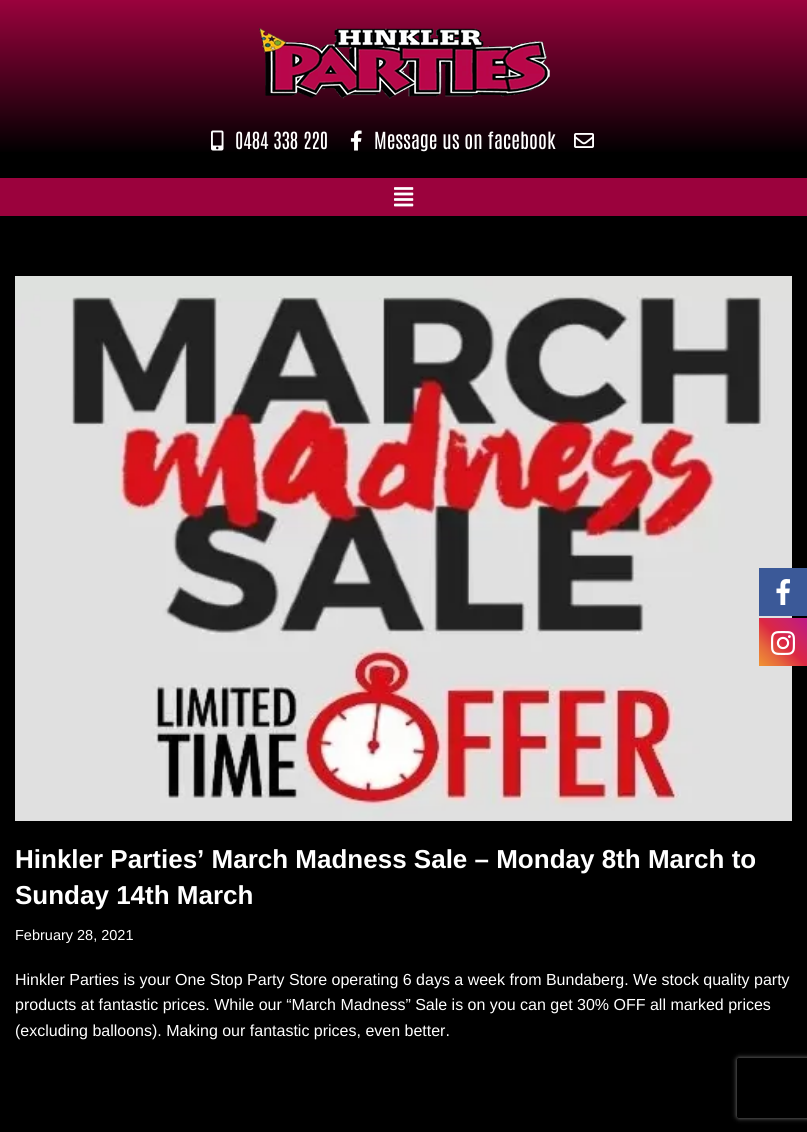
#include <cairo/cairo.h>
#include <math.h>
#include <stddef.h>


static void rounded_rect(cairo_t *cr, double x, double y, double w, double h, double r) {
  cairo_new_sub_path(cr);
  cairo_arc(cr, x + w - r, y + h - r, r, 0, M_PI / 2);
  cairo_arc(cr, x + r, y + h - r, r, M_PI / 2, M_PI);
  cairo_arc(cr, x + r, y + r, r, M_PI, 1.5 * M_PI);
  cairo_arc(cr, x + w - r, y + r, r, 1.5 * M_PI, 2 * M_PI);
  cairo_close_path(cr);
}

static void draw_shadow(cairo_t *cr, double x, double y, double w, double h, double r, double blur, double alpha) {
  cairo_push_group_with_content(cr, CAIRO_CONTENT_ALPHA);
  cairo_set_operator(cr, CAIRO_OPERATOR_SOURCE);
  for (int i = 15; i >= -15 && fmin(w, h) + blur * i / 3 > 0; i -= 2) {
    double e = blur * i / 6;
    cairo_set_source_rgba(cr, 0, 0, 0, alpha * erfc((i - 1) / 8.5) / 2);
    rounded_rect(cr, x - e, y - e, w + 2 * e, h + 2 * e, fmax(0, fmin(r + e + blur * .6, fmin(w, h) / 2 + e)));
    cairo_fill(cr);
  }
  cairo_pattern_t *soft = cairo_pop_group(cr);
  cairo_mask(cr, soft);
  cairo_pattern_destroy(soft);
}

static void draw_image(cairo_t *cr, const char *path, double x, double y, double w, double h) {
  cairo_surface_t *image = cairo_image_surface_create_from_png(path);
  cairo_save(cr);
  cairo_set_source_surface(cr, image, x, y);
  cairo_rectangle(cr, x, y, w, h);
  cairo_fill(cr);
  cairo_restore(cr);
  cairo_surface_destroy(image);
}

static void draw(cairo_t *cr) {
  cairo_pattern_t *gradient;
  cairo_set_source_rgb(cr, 0, 0, 0);
  cairo_paint(cr);
  gradient = cairo_pattern_create_linear(404, 0, 404, 178);
  cairo_pattern_add_color_stop_rgba(gradient, 0, 155 / 255.0, 2 / 255.0, 61 / 255.0, 1);
  cairo_pattern_add_color_stop_rgba(gradient, 0.87, 0, 0, 0, 1);
  cairo_set_source(cr, gradient);
  cairo_pattern_destroy(gradient);
  cairo_rectangle(cr, 0, 0, 807, 152);
  cairo_fill(cr);
  draw_image(cr, "images/1.png", 259, 28, 291, 71);
  draw_image(cr, "images/2.png", 211, 130, 13, 21);
  draw_image(cr, "images/3.png", 350, 130, 12, 21);
  draw_image(cr, "images/4.png", 574, 133, 20, 15);
  cairo_set_source_rgb(cr, 155 / 255.0, 2 / 255.0, 61 / 255.0);
  cairo_rectangle(cr, 0, 178, 807, 38);
  cairo_fill(cr);
  draw_image(cr, "images/5.png", 394, 187, 20, 20);
  draw_image(cr, "images/6.png", 15, 276, 777, 545);
  cairo_save(cr);
  cairo_set_fill_rule(cr, CAIRO_FILL_RULE_EVEN_ODD);
  cairo_new_path(cr);
  cairo_move_to(cr, 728, 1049);
  cairo_line_to(cr, 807, 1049);
  cairo_line_to(cr, 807, 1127);
  cairo_line_to(cr, 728, 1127);
  cairo_close_path(cr);
  cairo_move_to(cr, 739, 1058);
  cairo_line_to(cr, 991, 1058);
  cairo_curve_to(cr, 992, 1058, 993, 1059, 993, 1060);
  cairo_line_to(cr, 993, 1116);
  cairo_curve_to(cr, 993, 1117, 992, 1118, 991, 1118);
  cairo_line_to(cr, 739, 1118);
  cairo_curve_to(cr, 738, 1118, 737, 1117, 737, 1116);
  cairo_line_to(cr, 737, 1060);
  cairo_curve_to(cr, 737, 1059, 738, 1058, 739, 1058);
  cairo_close_path(cr);
  cairo_clip(cr);
  cairo_set_source_rgb(cr, 128 / 255.0, 128 / 255.0, 128 / 255.0);
  draw_shadow(cr, 737, 1058, 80, 60, 2, 2.5, 1);
  cairo_restore(cr);
  cairo_set_source_rgb(cr, 59 / 255.0, 89 / 255.0, 152 / 255.0);
  cairo_rectangle(cr, 759, 568, 48, 48);
  cairo_fill(cr);
  draw_image(cr, "images/7.png", 776, 579, 14, 26);
  gradient = cairo_pattern_create_linear(759, 666, 807, 618);
  cairo_pattern_add_color_stop_rgba(gradient, 0, 240 / 255.0, 148 / 255.0, 51 / 255.0, 1);
  cairo_pattern_add_color_stop_rgba(gradient, 0.25, 230 / 255.0, 104 / 255.0, 60 / 255.0, 1);
  cairo_pattern_add_color_stop_rgba(gradient, 0.5, 220 / 255.0, 39 / 255.0, 67 / 255.0, 1);
  cairo_pattern_add_color_stop_rgba(gradient, 0.75, 204 / 255.0, 35 / 255.0, 102 / 255.0, 1);
  cairo_pattern_add_color_stop_rgba(gradient, 1, 188 / 255.0, 24 / 255.0, 136 / 255.0, 1);
  cairo_set_source(cr, gradient);
  cairo_pattern_destroy(gradient);
  cairo_rectangle(cr, 759, 618, 48, 48);
  cairo_fill(cr);
  draw_image(cr, "images/8.png", 771, 631, 24, 24);
  cairo_select_font_face(cr, "Antonio", CAIRO_FONT_SLANT_NORMAL, CAIRO_FONT_WEIGHT_NORMAL);
  cairo_set_font_size(cr, 20);
  cairo_set_source_rgb(cr, 1, 1, 1);
  cairo_move_to(cr, 235, 149);
  cairo_show_text(cr, "0484 338 220");
  cairo_move_to(cr, 374, 149);
  cairo_show_text(cr, "Message us on facebook");
  cairo_select_font_face(cr, "Liberation Sans", CAIRO_FONT_SLANT_NORMAL, CAIRO_FONT_WEIGHT_BOLD);
  cairo_set_font_size(cr, 26);
  cairo_move_to(cr, 15, 868);
  cairo_show_text(cr, "Hinkler Parties’ March Madness Sale – Monday 8th March to");
  cairo_move_to(cr, 15, 904);
  cairo_show_text(cr, "Sunday 14th March");
  cairo_select_font_face(cr, "Liberation Sans", CAIRO_FONT_SLANT_NORMAL, CAIRO_FONT_WEIGHT_NORMAL);
  cairo_set_font_size(cr, 14.5);
  cairo_move_to(cr, 15, 940);
  cairo_show_text(cr, "February 28, 2021");
  cairo_set_font_size(cr, 16);
  cairo_move_to(cr, 15, 985);
  cairo_show_text(cr, "Hinkler Parties is your One Stop Party Store operating 6 days a week from Bundaberg. We stock quality party");
  cairo_move_to(cr, 15, 1010);
  cairo_show_text(cr, "products at fantastic prices. While our “March Madness” Sale is on you can get 30% OFF all marked prices");
  cairo_move_to(cr, 15, 1036);
  cairo_show_text(cr, "(excluding balloons). Making our fantastic prices, even better.");
}

int main(void) {
  cairo_surface_t *surface = cairo_image_surface_create(CAIRO_FORMAT_RGB24, 807, 1132);
  cairo_t *cr = cairo_create(surface);
  cairo_font_options_t *options = cairo_font_options_create();
  cairo_font_options_set_hint_metrics(options, CAIRO_HINT_METRICS_OFF);
  cairo_font_options_set_hint_style(options, CAIRO_HINT_STYLE_NONE);
  cairo_set_font_options(cr, options);
  cairo_set_miter_limit(cr, 4);
  draw(cr);
  cairo_surface_write_to_png(surface, "out.png");
  cairo_font_options_destroy(options);
  cairo_destroy(cr);
  cairo_surface_destroy(surface);
  return 0;
}
